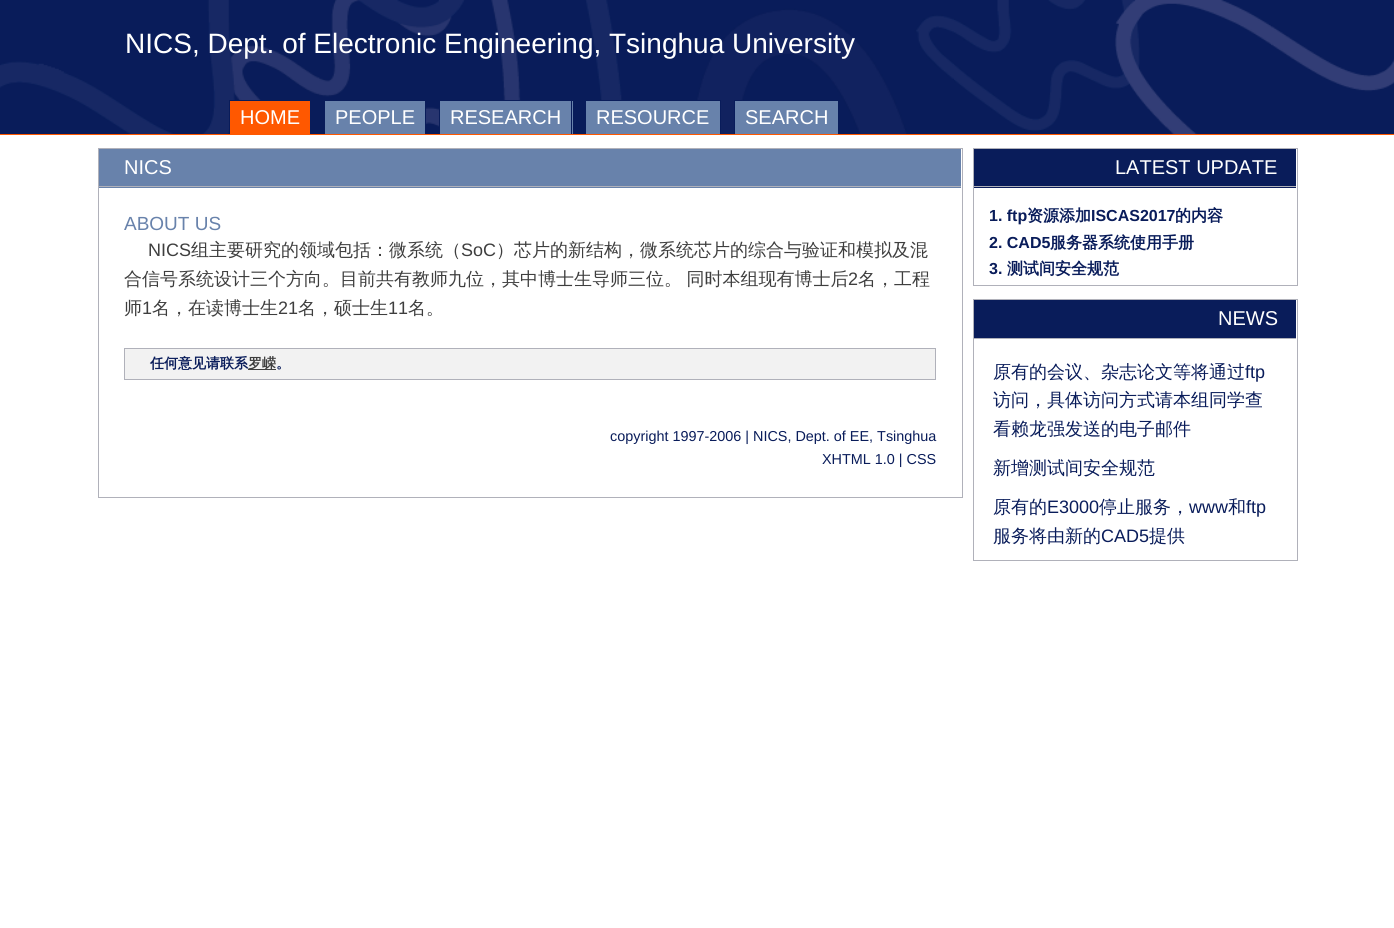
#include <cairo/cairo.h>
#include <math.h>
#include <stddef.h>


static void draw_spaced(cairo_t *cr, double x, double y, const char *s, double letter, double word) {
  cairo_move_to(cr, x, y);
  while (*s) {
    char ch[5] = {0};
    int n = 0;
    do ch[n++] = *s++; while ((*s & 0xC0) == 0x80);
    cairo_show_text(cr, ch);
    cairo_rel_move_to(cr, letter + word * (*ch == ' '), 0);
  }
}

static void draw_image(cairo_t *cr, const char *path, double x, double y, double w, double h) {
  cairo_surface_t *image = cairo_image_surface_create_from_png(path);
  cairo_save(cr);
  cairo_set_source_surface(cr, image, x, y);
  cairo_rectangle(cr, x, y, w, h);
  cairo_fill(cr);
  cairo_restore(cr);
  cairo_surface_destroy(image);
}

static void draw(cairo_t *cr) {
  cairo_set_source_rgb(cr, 1, 1, 1);
  cairo_paint(cr);
  draw_image(cr, "images/1.png", 0, 0, 1394, 134);
  cairo_set_source_rgb(cr, 1, 88 / 255.0, 0);
  cairo_rectangle(cr, 0, 134, 1394, 1);
  cairo_fill(cr);
  cairo_rectangle(cr, 230, 101, 80, 33);
  cairo_fill(cr);
  cairo_set_source_rgb(cr, 9 / 255.0, 28 / 255.0, 90 / 255.0);
  cairo_rectangle(cr, 229, 100, 33, 1);
  cairo_fill(cr);
  cairo_rectangle(cr, 229, 100, 1, 34);
  cairo_fill(cr);
  cairo_set_source_rgb(cr, 104 / 255.0, 130 / 255.0, 171 / 255.0);
  cairo_rectangle(cr, 325, 101, 100, 33);
  cairo_fill(cr);
  cairo_set_source_rgb(cr, 9 / 255.0, 28 / 255.0, 90 / 255.0);
  cairo_rectangle(cr, 425, 100, 1, 25);
  cairo_fill(cr);
  cairo_set_source_rgb(cr, 104 / 255.0, 130 / 255.0, 171 / 255.0);
  cairo_rectangle(cr, 440, 101, 133, 33);
  cairo_fill(cr);
  cairo_set_source_rgb(cr, 9 / 255.0, 28 / 255.0, 90 / 255.0);
  cairo_rectangle(cr, 503, 100, 17, 1);
  cairo_fill(cr);
  cairo_rectangle(cr, 571, 100, 1, 34);
  cairo_fill(cr);
  cairo_rectangle(cr, 439, 109, 1, 25);
  cairo_fill(cr);
  cairo_set_source_rgb(cr, 104 / 255.0, 130 / 255.0, 171 / 255.0);
  cairo_rectangle(cr, 586, 101, 134, 33);
  cairo_fill(cr);
  cairo_set_source_rgb(cr, 9 / 255.0, 28 / 255.0, 90 / 255.0);
  cairo_rectangle(cr, 601, 100, 120, 1);
  cairo_fill(cr);
  cairo_rectangle(cr, 720, 100, 1, 34);
  cairo_fill(cr);
  cairo_set_source_rgb(cr, 104 / 255.0, 130 / 255.0, 171 / 255.0);
  cairo_rectangle(cr, 735, 101, 103, 33);
  cairo_fill(cr);
  cairo_set_source_rgb(cr, 9 / 255.0, 28 / 255.0, 90 / 255.0);
  cairo_rectangle(cr, 734, 100, 8, 1);
  cairo_fill(cr);
  cairo_rectangle(cr, 734, 100, 1, 34);
  cairo_fill(cr);
  cairo_rectangle(cr, 98.5, 148.5, 864, 349);
  cairo_set_source_rgb(cr, 176 / 255.0, 177 / 255.0, 186 / 255.0);
  cairo_set_line_width(cr, 1);
  cairo_stroke(cr);
  cairo_set_source_rgb(cr, 104 / 255.0, 130 / 255.0, 171 / 255.0);
  cairo_rectangle(cr, 99, 149, 862, 39);
  cairo_fill(cr);
  cairo_set_source_rgb(cr, 176 / 255.0, 177 / 255.0, 186 / 255.0);
  cairo_rectangle(cr, 99, 186, 862, 1);
  cairo_fill(cr);
  cairo_set_source_rgb(cr, 242 / 255.0, 242 / 255.0, 242 / 255.0);
  cairo_rectangle(cr, 124.5, 348.5, 811, 31);
  cairo_fill_preserve(cr);
  cairo_set_source_rgb(cr, 176 / 255.0, 177 / 255.0, 186 / 255.0);
  cairo_stroke(cr);
  cairo_set_source_rgb(cr, 62 / 255.0, 62 / 255.0, 62 / 255.0);
  cairo_rectangle(cr, 248, 369, 28, 1);
  cairo_fill(cr);
  cairo_rectangle(cr, 973.5, 148.5, 324, 137);
  cairo_set_source_rgb(cr, 176 / 255.0, 177 / 255.0, 186 / 255.0);
  cairo_stroke(cr);
  cairo_set_source_rgb(cr, 9 / 255.0, 28 / 255.0, 90 / 255.0);
  cairo_rectangle(cr, 974, 149, 322, 39);
  cairo_fill(cr);
  cairo_set_source_rgb(cr, 176 / 255.0, 177 / 255.0, 186 / 255.0);
  cairo_rectangle(cr, 974, 186, 322, 1);
  cairo_fill(cr);
  cairo_rectangle(cr, 973.5, 299.5, 324, 261);
  cairo_stroke(cr);
  cairo_set_source_rgb(cr, 9 / 255.0, 28 / 255.0, 90 / 255.0);
  cairo_rectangle(cr, 974, 300, 322, 38);
  cairo_fill(cr);
  cairo_set_source_rgb(cr, 176 / 255.0, 177 / 255.0, 186 / 255.0);
  cairo_rectangle(cr, 974, 338, 322, 1);
  cairo_fill(cr);
  cairo_select_font_face(cr, "Liberation Sans", CAIRO_FONT_SLANT_NORMAL, CAIRO_FONT_WEIGHT_NORMAL);
  cairo_set_font_size(cr, 28);
  cairo_set_source_rgb(cr, 1, 1, 1);
  cairo_move_to(cr, 125, 53);
  cairo_show_text(cr, "NICS, Dept. of Electronic Engineering, Tsinghua University");
  cairo_set_font_size(cr, 20);
  cairo_move_to(cr, 240, 124);
  cairo_show_text(cr, "HOME");
  cairo_move_to(cr, 335, 124);
  cairo_show_text(cr, "PEOPLE");
  cairo_move_to(cr, 450, 124);
  cairo_show_text(cr, "RESEARCH");
  cairo_move_to(cr, 596, 124);
  cairo_show_text(cr, "RESOURCE");
  cairo_move_to(cr, 745, 124);
  cairo_show_text(cr, "SEARCH");
  cairo_move_to(cr, 124, 174);
  cairo_show_text(cr, "NICS");
  cairo_set_font_size(cr, 19);
  cairo_set_source_rgb(cr, 104 / 255.0, 130 / 255.0, 171 / 255.0);
  cairo_move_to(cr, 124, 230);
  cairo_show_text(cr, "ABOUT US");
  cairo_set_font_size(cr, 18);
  cairo_set_source_rgb(cr, 62 / 255.0, 62 / 255.0, 62 / 255.0);
  cairo_move_to(cr, 148, 256);
  cairo_show_text(cr, "NICS");
  cairo_select_font_face(cr, "WenQuanYi Zen Hei Medium", CAIRO_FONT_SLANT_NORMAL, CAIRO_FONT_WEIGHT_NORMAL);
  cairo_move_to(cr, 191, 256);
  cairo_show_text(cr, "组主要研究的领域包括：微系统（");
  cairo_select_font_face(cr, "Liberation Sans", CAIRO_FONT_SLANT_NORMAL, CAIRO_FONT_WEIGHT_NORMAL);
  cairo_move_to(cr, 461, 256);
  cairo_show_text(cr, "SoC");
  cairo_select_font_face(cr, "WenQuanYi Zen Hei Medium", CAIRO_FONT_SLANT_NORMAL, CAIRO_FONT_WEIGHT_NORMAL);
  cairo_move_to(cr, 496, 256);
  cairo_show_text(cr, "）芯片的新结构，微系统芯片的综合与验证和模拟及混");
  draw_spaced(cr, 124, 285, "合信号系统设计三个方向。目前共有教师九位，其中博士生导师三位。 同时本组现有博士后", 0, -1);
  cairo_select_font_face(cr, "Liberation Sans", CAIRO_FONT_SLANT_NORMAL, CAIRO_FONT_WEIGHT_NORMAL);
  cairo_move_to(cr, 848, 285);
  cairo_show_text(cr, "2");
  cairo_select_font_face(cr, "WenQuanYi Zen Hei Medium", CAIRO_FONT_SLANT_NORMAL, CAIRO_FONT_WEIGHT_NORMAL);
  cairo_move_to(cr, 858, 285);
  cairo_show_text(cr, "名，工程");
  cairo_move_to(cr, 124, 314);
  cairo_show_text(cr, "师");
  cairo_select_font_face(cr, "Liberation Sans", CAIRO_FONT_SLANT_NORMAL, CAIRO_FONT_WEIGHT_NORMAL);
  cairo_move_to(cr, 142, 314);
  cairo_show_text(cr, "1");
  cairo_select_font_face(cr, "WenQuanYi Zen Hei Medium", CAIRO_FONT_SLANT_NORMAL, CAIRO_FONT_WEIGHT_NORMAL);
  cairo_move_to(cr, 152, 314);
  cairo_show_text(cr, "名，在读博士生");
  cairo_select_font_face(cr, "Liberation Sans", CAIRO_FONT_SLANT_NORMAL, CAIRO_FONT_WEIGHT_NORMAL);
  cairo_move_to(cr, 278, 314);
  cairo_show_text(cr, "21");
  cairo_select_font_face(cr, "WenQuanYi Zen Hei Medium", CAIRO_FONT_SLANT_NORMAL, CAIRO_FONT_WEIGHT_NORMAL);
  cairo_move_to(cr, 298, 314);
  cairo_show_text(cr, "名，硕士生");
  cairo_select_font_face(cr, "Liberation Sans", CAIRO_FONT_SLANT_NORMAL, CAIRO_FONT_WEIGHT_NORMAL);
  cairo_move_to(cr, 388, 314);
  cairo_show_text(cr, "11");
  cairo_select_font_face(cr, "WenQuanYi Zen Hei Medium", CAIRO_FONT_SLANT_NORMAL, CAIRO_FONT_WEIGHT_NORMAL);
  cairo_move_to(cr, 408, 314);
  cairo_show_text(cr, "名。");
  cairo_select_font_face(cr, "WenQuanYi Zen Hei", CAIRO_FONT_SLANT_NORMAL, CAIRO_FONT_WEIGHT_BOLD);
  cairo_set_font_size(cr, 14);
  cairo_set_source_rgb(cr, 9 / 255.0, 28 / 255.0, 90 / 255.0);
  cairo_move_to(cr, 150, 368);
  cairo_show_text(cr, "任何意见请联系");
  cairo_set_source_rgb(cr, 62 / 255.0, 62 / 255.0, 62 / 255.0);
  cairo_move_to(cr, 248, 368);
  cairo_show_text(cr, "罗嵘");
  cairo_set_source_rgb(cr, 9 / 255.0, 28 / 255.0, 90 / 255.0);
  cairo_move_to(cr, 276, 368);
  cairo_show_text(cr, "。");
  cairo_select_font_face(cr, "Liberation Sans", CAIRO_FONT_SLANT_NORMAL, CAIRO_FONT_WEIGHT_NORMAL);
  cairo_set_font_size(cr, 14.4);
  cairo_move_to(cr, 610, 441);
  cairo_show_text(cr, "copyright 1997-2006 | NICS, Dept. of EE, Tsinghua");
  cairo_move_to(cr, 822, 464);
  cairo_show_text(cr, "XHTML 1.0 | CSS");
  cairo_set_font_size(cr, 20);
  cairo_set_source_rgb(cr, 1, 1, 1);
  cairo_move_to(cr, 1115, 174);
  cairo_show_text(cr, "LATEST UPDATE");
  cairo_select_font_face(cr, "Liberation Sans", CAIRO_FONT_SLANT_NORMAL, CAIRO_FONT_WEIGHT_BOLD);
  cairo_set_font_size(cr, 16);
  cairo_set_source_rgb(cr, 9 / 255.0, 28 / 255.0, 90 / 255.0);
  cairo_move_to(cr, 989, 221);
  cairo_show_text(cr, "1. ftp");
  cairo_select_font_face(cr, "WenQuanYi Zen Hei", CAIRO_FONT_SLANT_NORMAL, CAIRO_FONT_WEIGHT_BOLD);
  cairo_move_to(cr, 1027, 221);
  cairo_show_text(cr, "资源添加");
  cairo_select_font_face(cr, "Liberation Sans", CAIRO_FONT_SLANT_NORMAL, CAIRO_FONT_WEIGHT_BOLD);
  cairo_move_to(cr, 1091, 221);
  cairo_show_text(cr, "ISCAS2017");
  cairo_select_font_face(cr, "WenQuanYi Zen Hei", CAIRO_FONT_SLANT_NORMAL, CAIRO_FONT_WEIGHT_BOLD);
  cairo_move_to(cr, 1175, 221);
  cairo_show_text(cr, "的内容");
  cairo_select_font_face(cr, "Liberation Sans", CAIRO_FONT_SLANT_NORMAL, CAIRO_FONT_WEIGHT_BOLD);
  cairo_move_to(cr, 989, 248);
  cairo_show_text(cr, "2. CAD5");
  cairo_select_font_face(cr, "WenQuanYi Zen Hei", CAIRO_FONT_SLANT_NORMAL, CAIRO_FONT_WEIGHT_BOLD);
  cairo_move_to(cr, 1050, 248);
  cairo_show_text(cr, "服务器系统使用手册");
  cairo_select_font_face(cr, "Liberation Sans", CAIRO_FONT_SLANT_NORMAL, CAIRO_FONT_WEIGHT_BOLD);
  cairo_move_to(cr, 989, 274);
  cairo_show_text(cr, "3.");
  cairo_select_font_face(cr, "WenQuanYi Zen Hei", CAIRO_FONT_SLANT_NORMAL, CAIRO_FONT_WEIGHT_BOLD);
  cairo_move_to(cr, 1007, 274);
  cairo_show_text(cr, "测试间安全规范");
  cairo_select_font_face(cr, "Liberation Sans", CAIRO_FONT_SLANT_NORMAL, CAIRO_FONT_WEIGHT_NORMAL);
  cairo_set_font_size(cr, 20);
  cairo_set_source_rgb(cr, 1, 1, 1);
  cairo_move_to(cr, 1218, 325);
  cairo_show_text(cr, "NEWS");
  cairo_select_font_face(cr, "WenQuanYi Zen Hei Medium", CAIRO_FONT_SLANT_NORMAL, CAIRO_FONT_WEIGHT_NORMAL);
  cairo_set_font_size(cr, 18);
  cairo_set_source_rgb(cr, 9 / 255.0, 28 / 255.0, 90 / 255.0);
  cairo_move_to(cr, 993, 378);
  cairo_show_text(cr, "原有的会议、杂志论文等将通过");
  cairo_select_font_face(cr, "Liberation Sans", CAIRO_FONT_SLANT_NORMAL, CAIRO_FONT_WEIGHT_NORMAL);
  cairo_move_to(cr, 1245, 378);
  cairo_show_text(cr, "ftp");
  cairo_select_font_face(cr, "WenQuanYi Zen Hei Medium", CAIRO_FONT_SLANT_NORMAL, CAIRO_FONT_WEIGHT_NORMAL);
  cairo_move_to(cr, 993, 406);
  cairo_show_text(cr, "访问，具体访问方式请本组同学查");
  cairo_move_to(cr, 993, 435);
  cairo_show_text(cr, "看赖龙强发送的电子邮件");
  cairo_move_to(cr, 993, 474);
  cairo_show_text(cr, "新增测试间安全规范");
  cairo_move_to(cr, 993, 513);
  cairo_show_text(cr, "原有的");
  cairo_select_font_face(cr, "Liberation Sans", CAIRO_FONT_SLANT_NORMAL, CAIRO_FONT_WEIGHT_NORMAL);
  cairo_move_to(cr, 1047, 513);
  cairo_show_text(cr, "E3000");
  cairo_select_font_face(cr, "WenQuanYi Zen Hei Medium", CAIRO_FONT_SLANT_NORMAL, CAIRO_FONT_WEIGHT_NORMAL);
  cairo_move_to(cr, 1099, 513);
  cairo_show_text(cr, "停止服务，");
  cairo_select_font_face(cr, "Liberation Sans", CAIRO_FONT_SLANT_NORMAL, CAIRO_FONT_WEIGHT_NORMAL);
  cairo_move_to(cr, 1189, 513);
  cairo_show_text(cr, "www");
  cairo_select_font_face(cr, "WenQuanYi Zen Hei Medium", CAIRO_FONT_SLANT_NORMAL, CAIRO_FONT_WEIGHT_NORMAL);
  cairo_move_to(cr, 1228, 513);
  cairo_show_text(cr, "和");
  cairo_select_font_face(cr, "Liberation Sans", CAIRO_FONT_SLANT_NORMAL, CAIRO_FONT_WEIGHT_NORMAL);
  cairo_move_to(cr, 1246, 513);
  cairo_show_text(cr, "ftp");
  cairo_select_font_face(cr, "WenQuanYi Zen Hei Medium", CAIRO_FONT_SLANT_NORMAL, CAIRO_FONT_WEIGHT_NORMAL);
  cairo_move_to(cr, 993, 542);
  cairo_show_text(cr, "服务将由新的");
  cairo_select_font_face(cr, "Liberation Sans", CAIRO_FONT_SLANT_NORMAL, CAIRO_FONT_WEIGHT_NORMAL);
  cairo_move_to(cr, 1101, 542);
  cairo_show_text(cr, "CAD5");
  cairo_select_font_face(cr, "WenQuanYi Zen Hei Medium", CAIRO_FONT_SLANT_NORMAL, CAIRO_FONT_WEIGHT_NORMAL);
  cairo_move_to(cr, 1149, 542);
  cairo_show_text(cr, "提供");
}

int main(void) {
  cairo_surface_t *surface = cairo_image_surface_create(CAIRO_FORMAT_RGB24, 1394, 928);
  cairo_t *cr = cairo_create(surface);
  cairo_font_options_t *options = cairo_font_options_create();
  cairo_font_options_set_hint_metrics(options, CAIRO_HINT_METRICS_OFF);
  cairo_font_options_set_hint_style(options, CAIRO_HINT_STYLE_NONE);
  cairo_set_font_options(cr, options);
  cairo_set_miter_limit(cr, 4);
  draw(cr);
  cairo_surface_write_to_png(surface, "out.png");
  cairo_font_options_destroy(options);
  cairo_destroy(cr);
  cairo_surface_destroy(surface);
  return 0;
}
